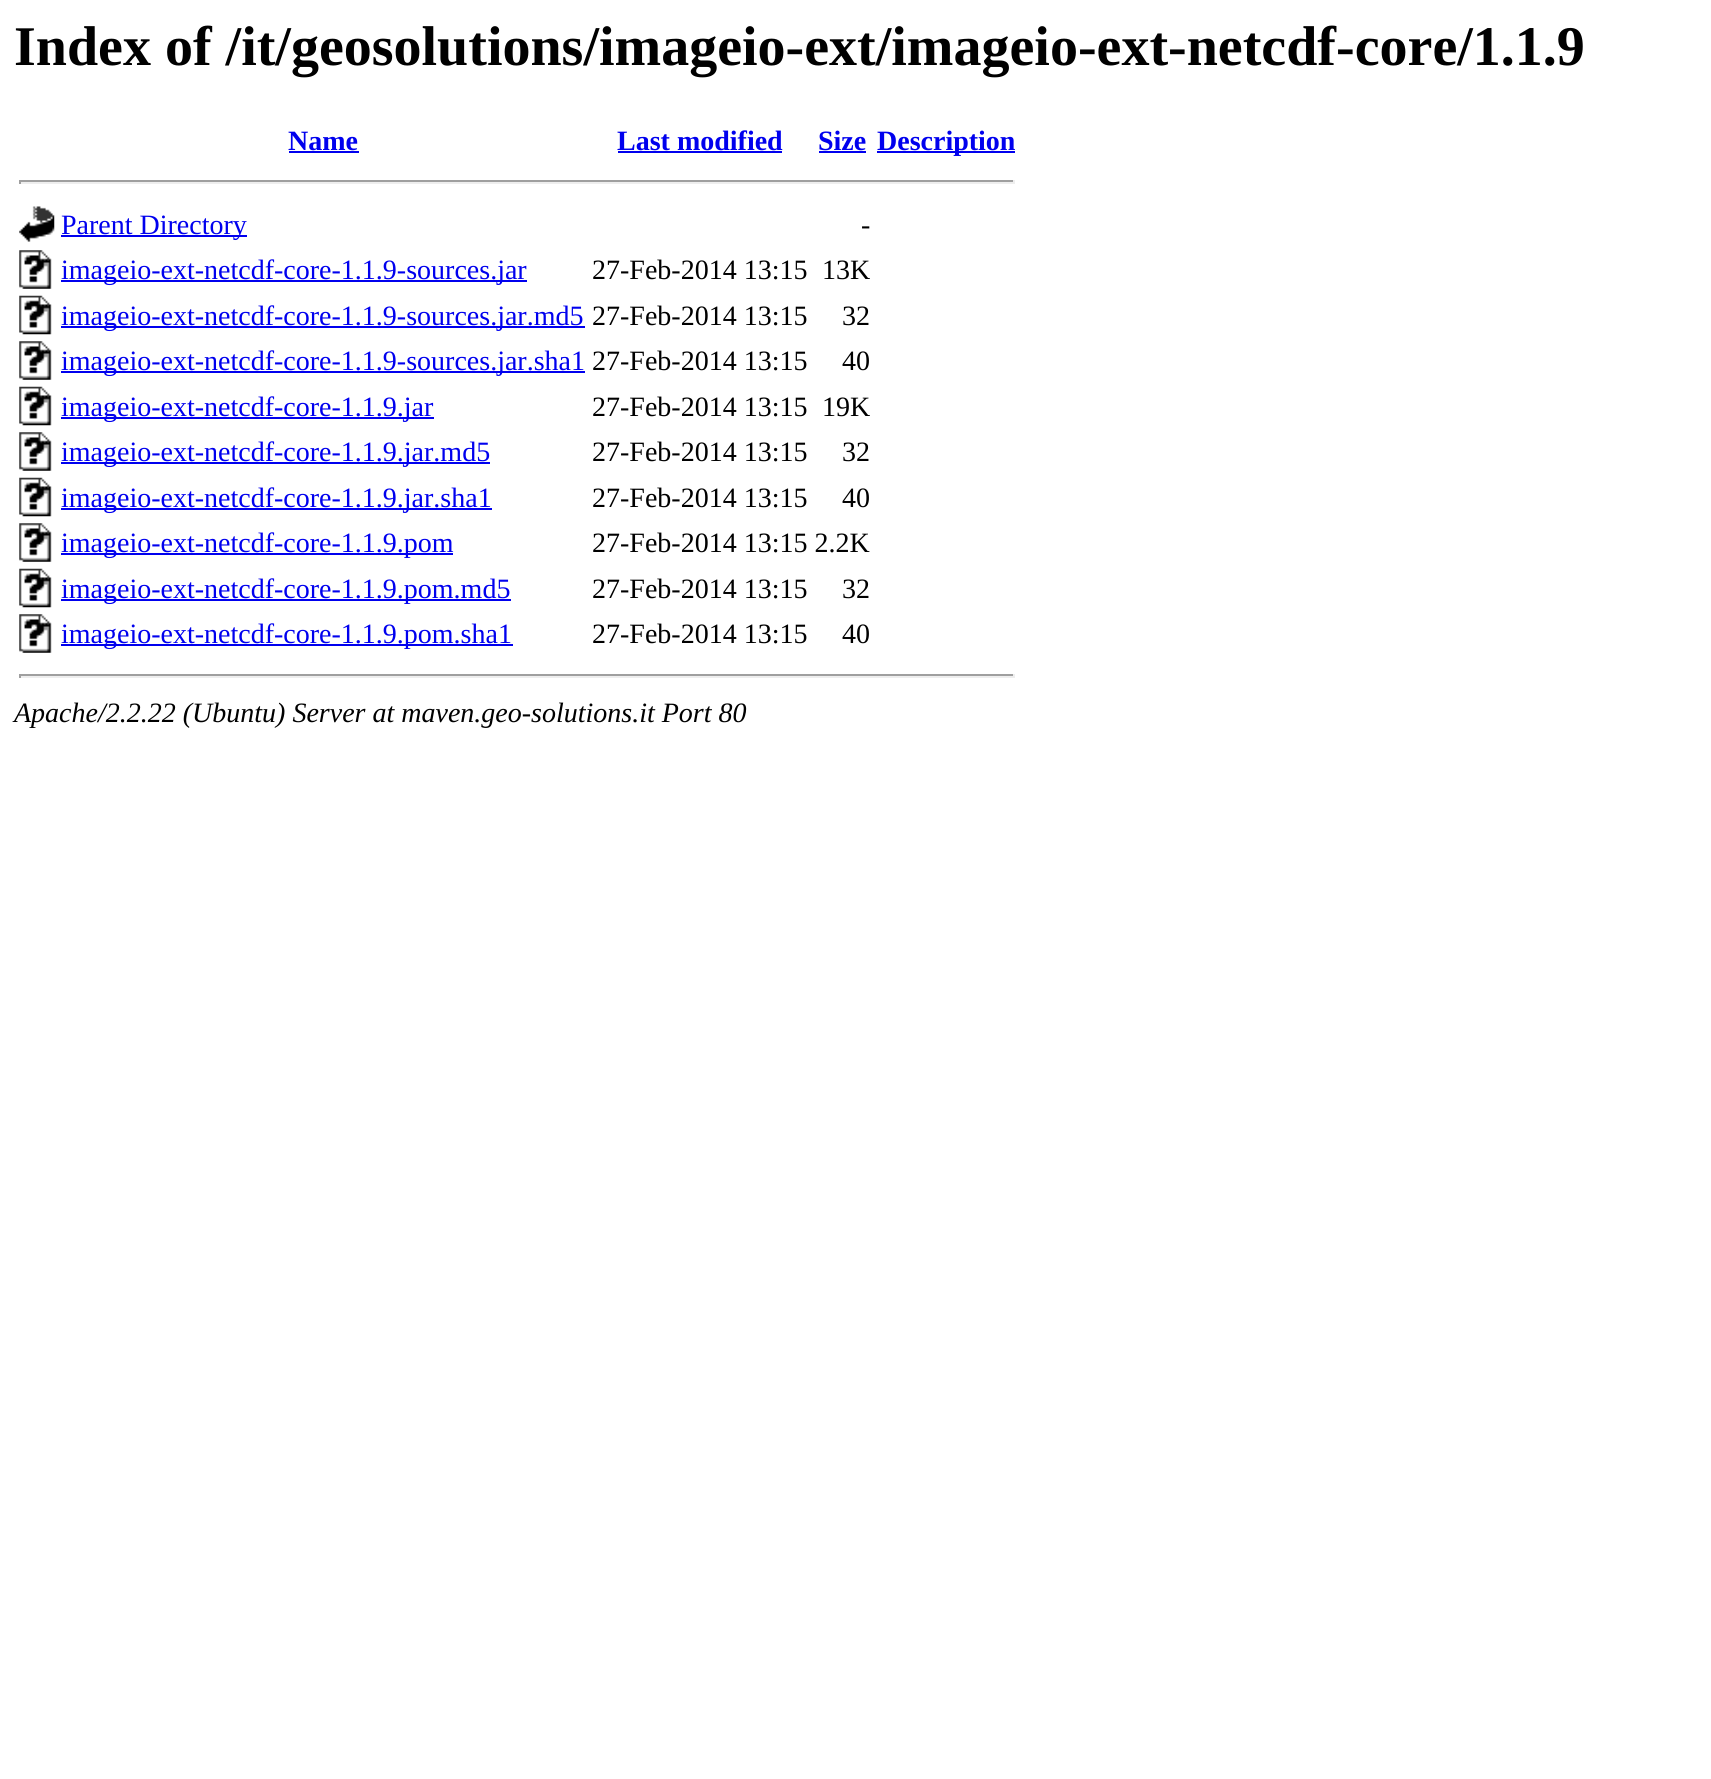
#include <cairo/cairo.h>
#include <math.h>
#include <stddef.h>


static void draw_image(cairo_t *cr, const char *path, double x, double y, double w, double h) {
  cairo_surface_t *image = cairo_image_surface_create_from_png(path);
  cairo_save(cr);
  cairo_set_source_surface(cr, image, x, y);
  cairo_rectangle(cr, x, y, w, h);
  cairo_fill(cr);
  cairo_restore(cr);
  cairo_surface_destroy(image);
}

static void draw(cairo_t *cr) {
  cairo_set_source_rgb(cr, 1, 1, 1);
  cairo_paint(cr);
  cairo_set_source_rgb(cr, 0, 0, 238 / 255.0);
  cairo_rectangle(cr, 289, 151, 70, 2);
  cairo_fill(cr);
  cairo_rectangle(cr, 618, 151, 164, 2);
  cairo_fill(cr);
  cairo_rectangle(cr, 819, 151, 47, 2);
  cairo_fill(cr);
  cairo_rectangle(cr, 877, 151, 138, 2);
  cairo_fill(cr);
  cairo_set_source_rgb(cr, 159 / 255.0, 159 / 255.0, 159 / 255.0);
  cairo_rectangle(cr, 19, 180, 996, 2);
  cairo_fill(cr);
  cairo_set_source_rgb(cr, 238 / 255.0, 238 / 255.0, 238 / 255.0);
  cairo_rectangle(cr, 1013, 180, 2, 4);
  cairo_fill(cr);
  cairo_rectangle(cr, 19, 182, 996, 2);
  cairo_fill(cr);
  cairo_set_source_rgb(cr, 159 / 255.0, 159 / 255.0, 159 / 255.0);
  cairo_rectangle(cr, 19, 180, 2, 4);
  cairo_fill(cr);
  draw_image(cr, "images/1.png", 19, 206, 36, 36);
  cairo_set_source_rgb(cr, 0, 0, 238 / 255.0);
  cairo_rectangle(cr, 61, 235, 186, 2);
  cairo_fill(cr);
  draw_image(cr, "images/2.png", 19, 250, 33, 39);
  cairo_rectangle(cr, 61, 280, 466, 2);
  cairo_fill(cr);
  draw_image(cr, "images/3.png", 19, 295, 33, 40);
  cairo_rectangle(cr, 61, 326, 524, 2);
  cairo_fill(cr);
  draw_image(cr, "images/2.png", 19, 341, 33, 39);
  cairo_rectangle(cr, 61, 371, 524, 2);
  cairo_fill(cr);
  draw_image(cr, "images/3.png", 19, 386, 33, 40);
  cairo_rectangle(cr, 61, 417, 373, 2);
  cairo_fill(cr);
  draw_image(cr, "images/2.png", 19, 432, 33, 39);
  cairo_rectangle(cr, 61, 462, 429, 2);
  cairo_fill(cr);
  draw_image(cr, "images/3.png", 19, 477, 33, 40);
  cairo_rectangle(cr, 61, 508, 431, 2);
  cairo_fill(cr);
  draw_image(cr, "images/2.png", 19, 523, 33, 39);
  cairo_rectangle(cr, 61, 553, 392, 2);
  cairo_fill(cr);
  draw_image(cr, "images/3.png", 19, 568, 33, 40);
  cairo_rectangle(cr, 61, 599, 450, 2);
  cairo_fill(cr);
  draw_image(cr, "images/2.png", 19, 614, 33, 39);
  cairo_rectangle(cr, 61, 644, 452, 2);
  cairo_fill(cr);
  cairo_set_source_rgb(cr, 159 / 255.0, 159 / 255.0, 159 / 255.0);
  cairo_rectangle(cr, 19, 674, 996, 2);
  cairo_fill(cr);
  cairo_set_source_rgb(cr, 238 / 255.0, 238 / 255.0, 238 / 255.0);
  cairo_rectangle(cr, 1013, 674, 2, 4);
  cairo_fill(cr);
  cairo_rectangle(cr, 19, 676, 996, 2);
  cairo_fill(cr);
  cairo_set_source_rgb(cr, 159 / 255.0, 159 / 255.0, 159 / 255.0);
  cairo_rectangle(cr, 19, 674, 2, 4);
  cairo_fill(cr);
  cairo_select_font_face(cr, "Liberation Serif", CAIRO_FONT_SLANT_NORMAL, CAIRO_FONT_WEIGHT_BOLD);
  cairo_set_font_size(cr, 56);
  cairo_set_source_rgb(cr, 0, 0, 0);
  cairo_move_to(cr, 14, 65);
  cairo_show_text(cr, "Index of /it/geosolutions/imageio-ext/imageio-ext-netcdf-core/1.1.9");
  cairo_set_font_size(cr, 28);
  cairo_set_source_rgb(cr, 0, 0, 238 / 255.0);
  cairo_move_to(cr, 288, 150);
  cairo_show_text(cr, "Name");
  cairo_move_to(cr, 617, 150);
  cairo_show_text(cr, "Last modified");
  cairo_move_to(cr, 818, 150);
  cairo_show_text(cr, "Size");
  cairo_move_to(cr, 877, 150);
  cairo_show_text(cr, "Description");
  cairo_select_font_face(cr, "Liberation Serif", CAIRO_FONT_SLANT_NORMAL, CAIRO_FONT_WEIGHT_NORMAL);
  cairo_move_to(cr, 61, 234);
  cairo_show_text(cr, "Parent Directory");
  cairo_set_source_rgb(cr, 0, 0, 0);
  cairo_move_to(cr, 861, 234);
  cairo_show_text(cr, "-");
  cairo_set_source_rgb(cr, 0, 0, 238 / 255.0);
  cairo_move_to(cr, 61, 279);
  cairo_show_text(cr, "imageio-ext-netcdf-core-1.1.9-sources.jar");
  cairo_set_source_rgb(cr, 0, 0, 0);
  cairo_move_to(cr, 592, 279);
  cairo_show_text(cr, "27-Feb-2014 13:15");
  cairo_move_to(cr, 822, 279);
  cairo_show_text(cr, "13K");
  cairo_set_source_rgb(cr, 0, 0, 238 / 255.0);
  cairo_move_to(cr, 61, 325);
  cairo_show_text(cr, "imageio-ext-netcdf-core-1.1.9-sources.jar.md5");
  cairo_set_source_rgb(cr, 0, 0, 0);
  cairo_move_to(cr, 592, 325);
  cairo_show_text(cr, "27-Feb-2014 13:15");
  cairo_move_to(cr, 842, 325);
  cairo_show_text(cr, "32");
  cairo_set_source_rgb(cr, 0, 0, 238 / 255.0);
  cairo_move_to(cr, 61, 370);
  cairo_show_text(cr, "imageio-ext-netcdf-core-1.1.9-sources.jar.sha1");
  cairo_set_source_rgb(cr, 0, 0, 0);
  cairo_move_to(cr, 592, 370);
  cairo_show_text(cr, "27-Feb-2014 13:15");
  cairo_move_to(cr, 842, 370);
  cairo_show_text(cr, "40");
  cairo_set_source_rgb(cr, 0, 0, 238 / 255.0);
  cairo_move_to(cr, 61, 416);
  cairo_show_text(cr, "imageio-ext-netcdf-core-1.1.9.jar");
  cairo_set_source_rgb(cr, 0, 0, 0);
  cairo_move_to(cr, 592, 416);
  cairo_show_text(cr, "27-Feb-2014 13:15");
  cairo_move_to(cr, 822, 416);
  cairo_show_text(cr, "19K");
  cairo_set_source_rgb(cr, 0, 0, 238 / 255.0);
  cairo_move_to(cr, 61, 461);
  cairo_show_text(cr, "imageio-ext-netcdf-core-1.1.9.jar.md5");
  cairo_set_source_rgb(cr, 0, 0, 0);
  cairo_move_to(cr, 592, 461);
  cairo_show_text(cr, "27-Feb-2014 13:15");
  cairo_move_to(cr, 842, 461);
  cairo_show_text(cr, "32");
  cairo_set_source_rgb(cr, 0, 0, 238 / 255.0);
  cairo_move_to(cr, 61, 507);
  cairo_show_text(cr, "imageio-ext-netcdf-core-1.1.9.jar.sha1");
  cairo_set_source_rgb(cr, 0, 0, 0);
  cairo_move_to(cr, 592, 507);
  cairo_show_text(cr, "27-Feb-2014 13:15");
  cairo_move_to(cr, 842, 507);
  cairo_show_text(cr, "40");
  cairo_set_source_rgb(cr, 0, 0, 238 / 255.0);
  cairo_move_to(cr, 61, 552);
  cairo_show_text(cr, "imageio-ext-netcdf-core-1.1.9.pom");
  cairo_set_source_rgb(cr, 0, 0, 0);
  cairo_move_to(cr, 592, 552);
  cairo_show_text(cr, "27-Feb-2014 13:15 2.2K");
  cairo_set_source_rgb(cr, 0, 0, 238 / 255.0);
  cairo_move_to(cr, 61, 598);
  cairo_show_text(cr, "imageio-ext-netcdf-core-1.1.9.pom.md5");
  cairo_set_source_rgb(cr, 0, 0, 0);
  cairo_move_to(cr, 592, 598);
  cairo_show_text(cr, "27-Feb-2014 13:15");
  cairo_move_to(cr, 842, 598);
  cairo_show_text(cr, "32");
  cairo_set_source_rgb(cr, 0, 0, 238 / 255.0);
  cairo_move_to(cr, 61, 643);
  cairo_show_text(cr, "imageio-ext-netcdf-core-1.1.9.pom.sha1");
  cairo_set_source_rgb(cr, 0, 0, 0);
  cairo_move_to(cr, 592, 643);
  cairo_show_text(cr, "27-Feb-2014 13:15");
  cairo_move_to(cr, 842, 643);
  cairo_show_text(cr, "40");
  cairo_select_font_face(cr, "Liberation Serif", CAIRO_FONT_SLANT_ITALIC, CAIRO_FONT_WEIGHT_NORMAL);
  cairo_move_to(cr, 14, 722);
  cairo_show_text(cr, "Apache/2.2.22 (Ubuntu) Server at maven.geo-solutions.it Port 80");
}

int main(void) {
  cairo_surface_t *surface = cairo_image_surface_create(CAIRO_FORMAT_RGB24, 1711, 1779);
  cairo_t *cr = cairo_create(surface);
  cairo_font_options_t *options = cairo_font_options_create();
  cairo_font_options_set_hint_metrics(options, CAIRO_HINT_METRICS_OFF);
  cairo_font_options_set_hint_style(options, CAIRO_HINT_STYLE_NONE);
  cairo_set_font_options(cr, options);
  cairo_set_miter_limit(cr, 4);
  draw(cr);
  cairo_surface_write_to_png(surface, "out.png");
  cairo_font_options_destroy(options);
  cairo_destroy(cr);
  cairo_surface_destroy(surface);
  return 0;
}
